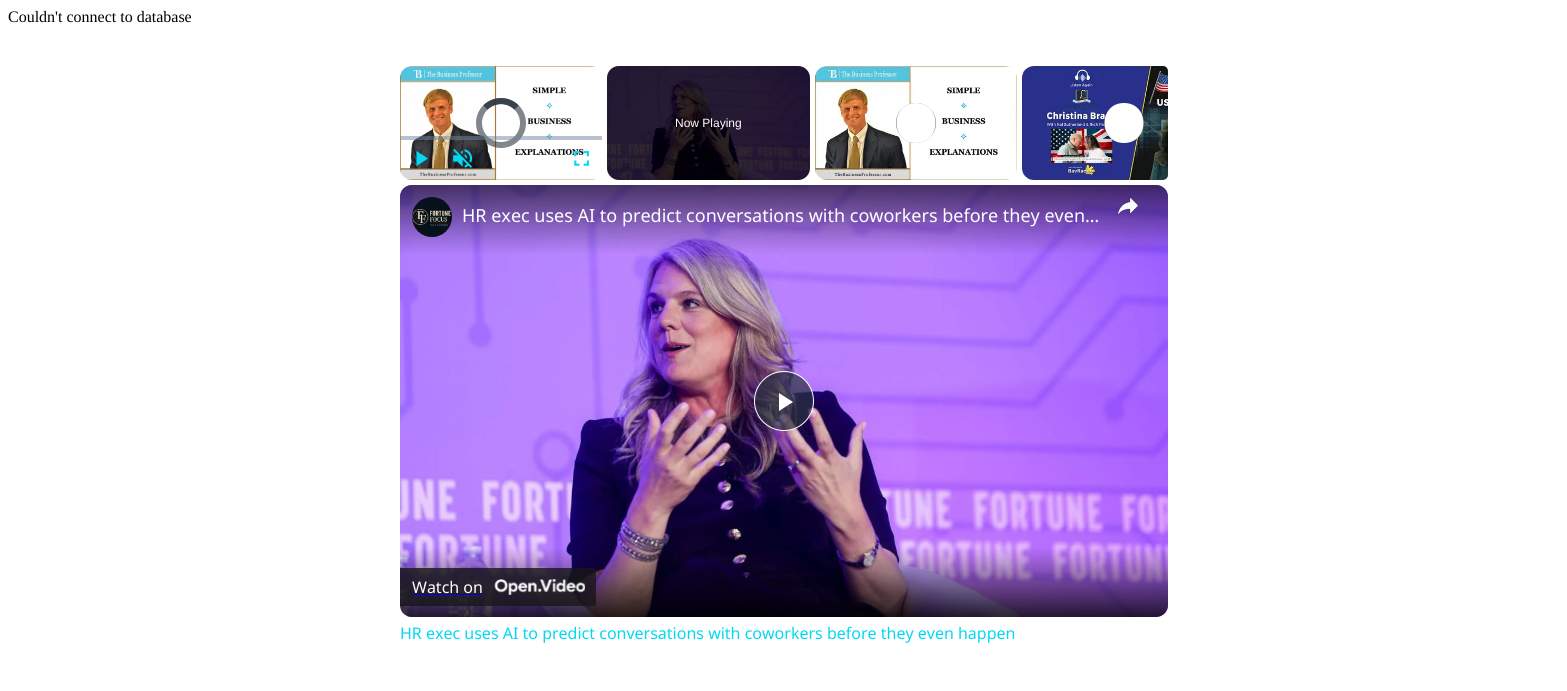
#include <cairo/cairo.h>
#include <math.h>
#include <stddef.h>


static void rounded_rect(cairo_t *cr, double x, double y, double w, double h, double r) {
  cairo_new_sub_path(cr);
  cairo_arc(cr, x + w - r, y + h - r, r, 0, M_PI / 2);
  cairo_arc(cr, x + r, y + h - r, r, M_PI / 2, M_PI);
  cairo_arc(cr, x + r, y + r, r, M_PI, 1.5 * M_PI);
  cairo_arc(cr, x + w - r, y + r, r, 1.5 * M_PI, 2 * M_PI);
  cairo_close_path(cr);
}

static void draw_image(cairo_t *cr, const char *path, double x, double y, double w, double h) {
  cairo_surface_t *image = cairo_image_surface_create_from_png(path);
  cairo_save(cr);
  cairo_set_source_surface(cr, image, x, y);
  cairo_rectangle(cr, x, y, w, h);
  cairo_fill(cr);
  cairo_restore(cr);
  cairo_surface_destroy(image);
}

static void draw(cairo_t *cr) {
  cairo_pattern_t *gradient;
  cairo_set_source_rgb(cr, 1, 1, 1);
  cairo_paint(cr);
  draw_image(cr, "images/1.png", 400, 66, 196, 114);
  cairo_arc(cr, 501, 123, 22, 0, 2 * M_PI);
  cairo_set_source_rgba(cr, 43 / 255.0, 51 / 255.0, 63 / 255.0, 0.59);
  cairo_set_line_width(cr, 6);
  cairo_stroke(cr);
  cairo_new_path(cr);
  cairo_move_to(cr, 485.5, 107.5);
  cairo_curve_to(cr, 494, 99, 508, 99, 516.5, 107.5);
  cairo_stroke(cr);
  cairo_new_path(cr);
  cairo_move_to(cr, 485.5, 107.5);
  cairo_curve_to(cr, 494, 99, 508, 99, 516.5, 107.5);
  cairo_stroke(cr);
  cairo_set_source_rgba(cr, 115 / 255.0, 133 / 255.0, 159 / 255.0, 0.5);
  cairo_rectangle(cr, 400, 136, 202, 4);
  cairo_fill(cr);
  cairo_set_source_rgb(cr, 3 / 255.0, 216 / 255.0, 243 / 255.0);
  cairo_new_path(cr);
  cairo_move_to(cr, 416.5, 151);
  cairo_line_to(cr, 416.5, 166);
  cairo_line_to(cr, 428, 158.5);
  cairo_close_path(cr);
  cairo_fill(cr);
  draw_image(cr, "images/2.png", 453, 149, 20, 19);
  draw_image(cr, "images/3.png", 574, 151, 15, 15);
  cairo_set_source_rgb(cr, 0, 0, 0);
  rounded_rect(cr, 607, 66, 203, 114, 12);
  cairo_fill(cr);
  draw_image(cr, "images/4.png", 607, 66, 203, 114);
  draw_image(cr, "images/5.png", 815, 66, 202, 114);
  cairo_set_source_rgba(cr, 43 / 255.0, 51 / 255.0, 63 / 255.0, 0.7);
  cairo_arc(cr, 916, 123, 20, 0, 2 * M_PI);
  cairo_fill(cr);
  cairo_set_source_rgb(cr, 1, 1, 1);
  cairo_new_path(cr);
  cairo_move_to(cr, 916, 103);
  cairo_curve_to(cr, 890, 103, 890, 143, 916, 143);
  cairo_curve_to(cr, 942, 143, 942, 103, 916, 103);
  cairo_close_path(cr);
  cairo_fill(cr);
  draw_image(cr, "images/6.png", 1022, 66, 146, 114);
  cairo_set_source_rgba(cr, 43 / 255.0, 51 / 255.0, 63 / 255.0, 0.7);
  cairo_arc(cr, 1124, 123, 20, 0, 2 * M_PI);
  cairo_fill(cr);
  cairo_set_source_rgb(cr, 1, 1, 1);
  cairo_new_path(cr);
  cairo_move_to(cr, 1124, 103);
  cairo_curve_to(cr, 1098, 103, 1098, 143, 1124, 143);
  cairo_curve_to(cr, 1150, 143, 1150, 103, 1124, 103);
  cairo_close_path(cr);
  cairo_fill(cr);
  draw_image(cr, "images/7.png", 400, 185, 768, 432);
  draw_image(cr, "images/8.png", 400, 185, 768, 432);
  cairo_set_source_rgba(cr, 43 / 255.0, 51 / 255.0, 63 / 255.0, 0.7);
  cairo_arc(cr, 784, 401, 29.5, 0, 2 * M_PI);
  cairo_fill_preserve(cr);
  cairo_set_source_rgb(cr, 1, 1, 1);
  cairo_set_line_width(cr, 1);
  cairo_stroke(cr);
  cairo_new_path(cr);
  cairo_move_to(cr, 779, 393);
  cairo_line_to(cr, 779, 411);
  cairo_line_to(cr, 793, 402);
  cairo_close_path(cr);
  cairo_fill(cr);
  gradient = cairo_pattern_create_linear(784, 185, 784, 617);
  cairo_pattern_add_color_stop_rgba(gradient, 0, 0, 0, 0, 0.6);
  cairo_pattern_add_color_stop_rgba(gradient, 0.16, 0, 0, 0, 0);
  cairo_pattern_add_color_stop_rgba(gradient, 0.84, 0, 0, 0, 0);
  cairo_pattern_add_color_stop_rgba(gradient, 1, 0, 0, 0, 0.8);
  cairo_set_source(cr, gradient);
  cairo_pattern_destroy(gradient);
  rounded_rect(cr, 400, 185, 768, 432, 12);
  cairo_fill(cr);
  draw_image(cr, "images/9.png", 412, 197, 40, 40);
  draw_image(cr, "images/10.png", 1117, 196, 22, 20);
  cairo_set_source_rgba(cr, 23 / 255.0, 23 / 255.0, 23 / 255.0, 0.8);
  cairo_new_path(cr);
  cairo_move_to(cr, 400, 568);
  cairo_line_to(cr, 594, 568);
  cairo_curve_to(cr, 595, 568, 596, 569, 596, 570);
  cairo_line_to(cr, 596, 604);
  cairo_curve_to(cr, 596, 605, 595, 606, 594, 606);
  cairo_line_to(cr, 400, 606);
  cairo_close_path(cr);
  cairo_fill(cr);
  cairo_set_source_rgb(cr, 0, 0, 238 / 255.0);
  cairo_rectangle(cr, 412, 594, 70, 1);
  cairo_fill(cr);
  draw_image(cr, "images/11.png", 494, 579, 91, 16);
  cairo_select_font_face(cr, "Liberation Serif", CAIRO_FONT_SLANT_NORMAL, CAIRO_FONT_WEIGHT_NORMAL);
  cairo_set_font_size(cr, 16);
  cairo_set_source_rgb(cr, 0, 0, 0);
  cairo_move_to(cr, 8, 22);
  cairo_show_text(cr, "Couldn't connect to database");
  cairo_select_font_face(cr, "Liberation Sans", CAIRO_FONT_SLANT_NORMAL, CAIRO_FONT_WEIGHT_NORMAL);
  cairo_set_font_size(cr, 12);
  cairo_set_source_rgb(cr, 1, 1, 1);
  cairo_move_to(cr, 675, 127);
  cairo_show_text(cr, "Now Playing");
  cairo_select_font_face(cr, "Noto Sans", CAIRO_FONT_SLANT_NORMAL, CAIRO_FONT_WEIGHT_NORMAL);
  cairo_set_font_size(cr, 18);
  cairo_move_to(cr, 462, 222);
  cairo_show_text(cr, "HR exec uses AI to predict conversations with coworkers before they even…");
  cairo_set_font_size(cr, 16);
  cairo_move_to(cr, 412, 593);
  cairo_show_text(cr, "Watch on");
  cairo_set_source_rgb(cr, 3 / 255.0, 216 / 255.0, 243 / 255.0);
  cairo_move_to(cr, 400, 639);
  cairo_show_text(cr, "HR exec uses AI to predict conversations with coworkers before they even happen");
}

int main(void) {
  cairo_surface_t *surface = cairo_image_surface_create(CAIRO_FORMAT_RGB24, 1567, 691);
  cairo_t *cr = cairo_create(surface);
  cairo_font_options_t *options = cairo_font_options_create();
  cairo_font_options_set_hint_metrics(options, CAIRO_HINT_METRICS_OFF);
  cairo_font_options_set_hint_style(options, CAIRO_HINT_STYLE_NONE);
  cairo_set_font_options(cr, options);
  cairo_set_miter_limit(cr, 4);
  draw(cr);
  cairo_surface_write_to_png(surface, "out.png");
  cairo_font_options_destroy(options);
  cairo_destroy(cr);
  cairo_surface_destroy(surface);
  return 0;
}
